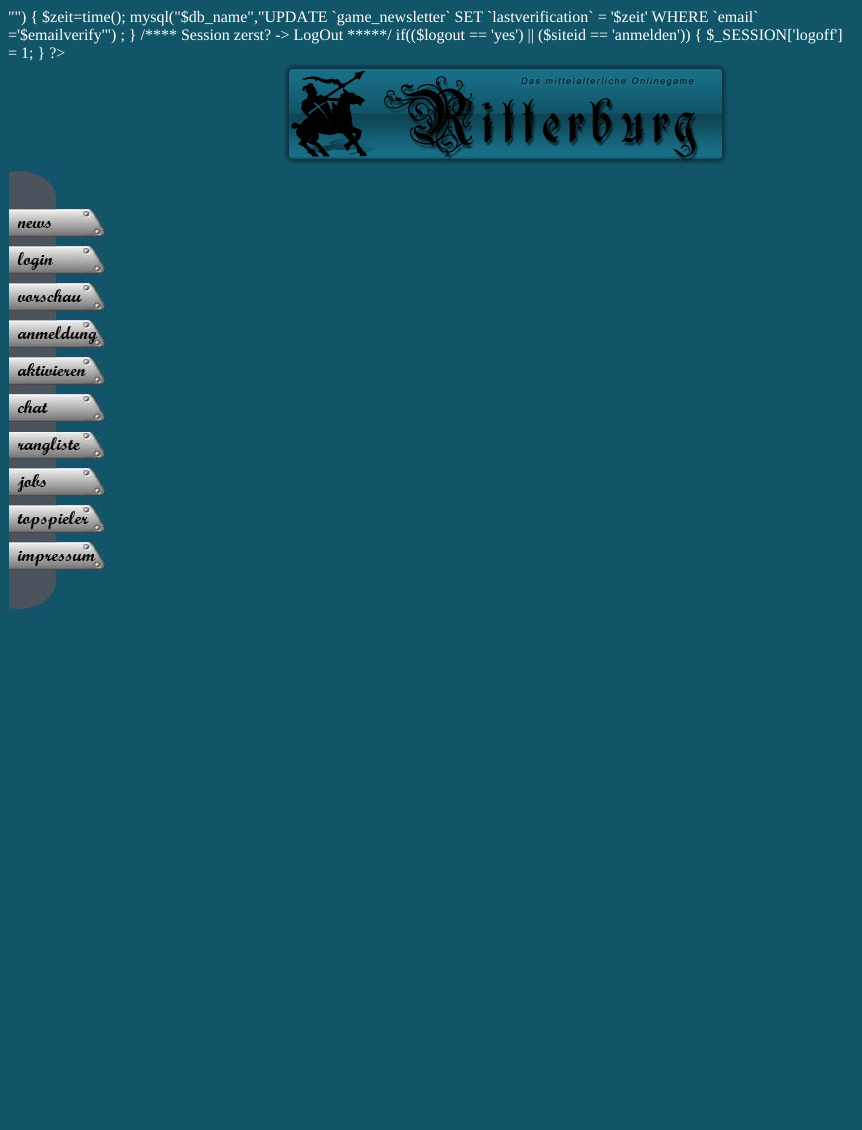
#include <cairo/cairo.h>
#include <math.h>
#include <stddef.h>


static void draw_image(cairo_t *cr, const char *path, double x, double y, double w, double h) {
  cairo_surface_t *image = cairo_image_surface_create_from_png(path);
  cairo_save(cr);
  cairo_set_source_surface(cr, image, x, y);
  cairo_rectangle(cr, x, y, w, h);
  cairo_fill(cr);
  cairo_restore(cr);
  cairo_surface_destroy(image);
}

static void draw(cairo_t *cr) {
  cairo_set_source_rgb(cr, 18 / 255.0, 85 / 255.0, 104 / 255.0);
  cairo_paint(cr);
  draw_image(cr, "images/1.png", 283, 63, 445, 102);
  draw_image(cr, "images/2.png", 9, 168, 49, 37);
  draw_image(cr, "images/3.png", 9, 205, 97, 37);
  draw_image(cr, "images/4.png", 9, 242, 97, 37);
  draw_image(cr, "images/5.png", 9, 279, 97, 37);
  draw_image(cr, "images/6.png", 9, 316, 97, 37);
  draw_image(cr, "images/7.png", 9, 353, 97, 37);
  draw_image(cr, "images/8.png", 9, 390, 97, 37);
  draw_image(cr, "images/9.png", 9, 427, 97, 37);
  draw_image(cr, "images/10.png", 9, 464, 97, 37);
  draw_image(cr, "images/11.png", 9, 501, 97, 37);
  draw_image(cr, "images/12.png", 9, 538, 97, 37);
  draw_image(cr, "images/13.png", 9, 575, 49, 37);
  cairo_select_font_face(cr, "Liberation Serif", CAIRO_FONT_SLANT_NORMAL, CAIRO_FONT_WEIGHT_NORMAL);
  cairo_set_font_size(cr, 16);
  cairo_set_source_rgb(cr, 1, 1, 1);
  cairo_move_to(cr, 8, 22);
  cairo_show_text(cr, "\"\") { $zeit=time(); mysql(\"$db_name\",\"UPDATE `game_newsletter` SET `lastverification` = '$zeit' WHERE `email`");
  cairo_move_to(cr, 8, 40);
  cairo_show_text(cr, "='$emailverify'\") ; } /**** Session zerst? -> LogOut *****/ if(($logout == 'yes') || ($siteid == 'anmelden')) { $_SESSION['logoff']");
  cairo_move_to(cr, 8, 58);
  cairo_show_text(cr, "= 1; } ?>");
}

int main(void) {
  cairo_surface_t *surface = cairo_image_surface_create(CAIRO_FORMAT_RGB24, 862, 1130);
  cairo_t *cr = cairo_create(surface);
  cairo_font_options_t *options = cairo_font_options_create();
  cairo_font_options_set_hint_metrics(options, CAIRO_HINT_METRICS_OFF);
  cairo_font_options_set_hint_style(options, CAIRO_HINT_STYLE_NONE);
  cairo_set_font_options(cr, options);
  cairo_set_miter_limit(cr, 4);
  draw(cr);
  cairo_surface_write_to_png(surface, "out.png");
  cairo_font_options_destroy(options);
  cairo_destroy(cr);
  cairo_surface_destroy(surface);
  return 0;
}
